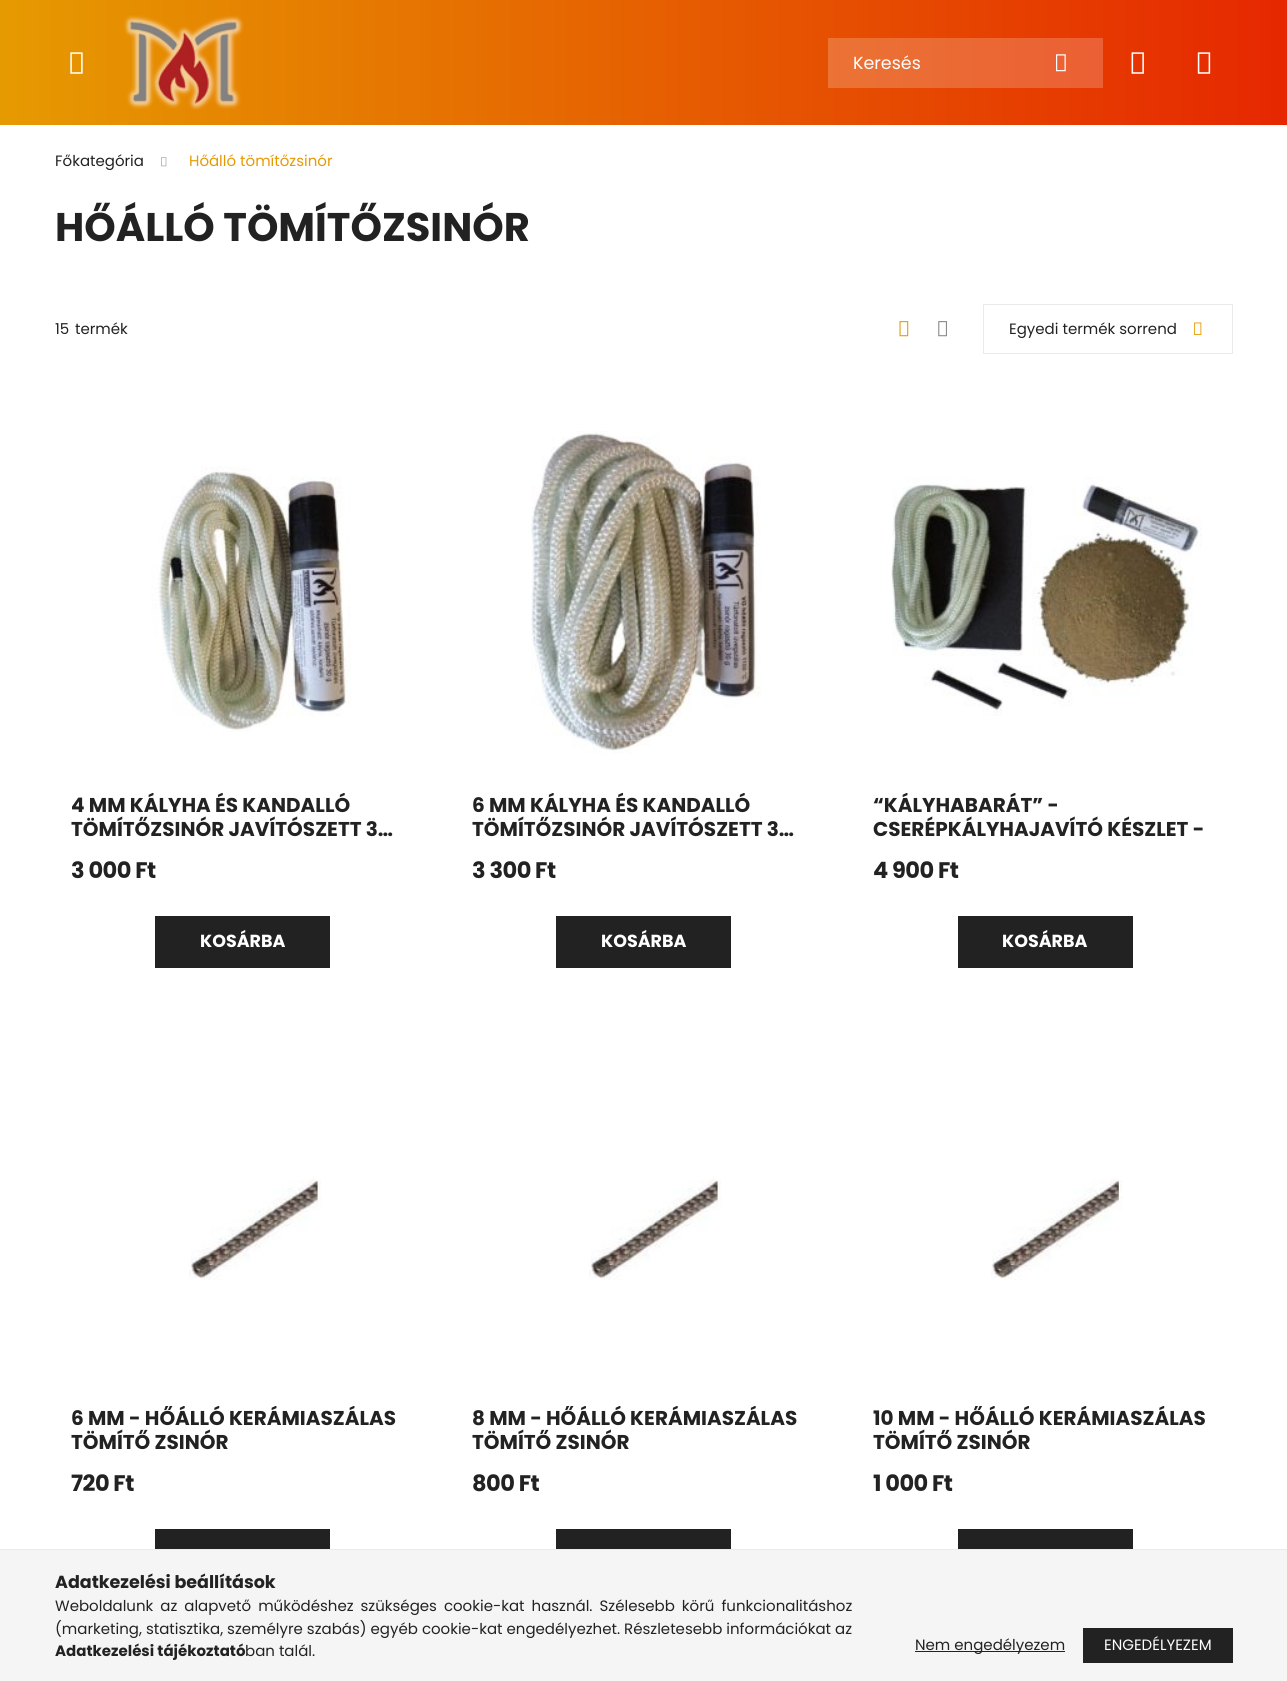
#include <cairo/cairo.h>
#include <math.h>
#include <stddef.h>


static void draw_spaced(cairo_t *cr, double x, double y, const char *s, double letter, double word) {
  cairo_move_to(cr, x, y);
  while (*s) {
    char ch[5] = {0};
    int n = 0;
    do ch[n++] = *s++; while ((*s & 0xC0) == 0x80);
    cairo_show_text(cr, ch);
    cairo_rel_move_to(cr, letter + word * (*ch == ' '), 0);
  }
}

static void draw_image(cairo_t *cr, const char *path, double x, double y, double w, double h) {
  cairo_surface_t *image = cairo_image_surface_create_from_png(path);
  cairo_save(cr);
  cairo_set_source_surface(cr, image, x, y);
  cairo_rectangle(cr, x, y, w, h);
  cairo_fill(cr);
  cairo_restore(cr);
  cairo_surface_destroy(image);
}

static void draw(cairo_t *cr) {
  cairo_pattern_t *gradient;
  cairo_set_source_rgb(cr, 1, 1, 1);
  cairo_paint(cr);
  gradient = cairo_pattern_create_linear(0, 63, 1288, 62);
  cairo_pattern_add_color_stop_rgba(gradient, 0, 230 / 255.0, 154 / 255.0, 1 / 255.0, 1);
  cairo_pattern_add_color_stop_rgba(gradient, 1, 230 / 255.0, 39 / 255.0, 1 / 255.0, 1);
  cairo_set_source(cr, gradient);
  cairo_pattern_destroy(gradient);
  cairo_rectangle(cr, 0, 0, 1287, 125);
  cairo_fill(cr);
  gradient = cairo_pattern_create_linear(0, 63, 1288, 62);
  cairo_pattern_add_color_stop_rgba(gradient, 0, 235 / 255.0, 174 / 255.0, 52 / 255.0, 1);
  cairo_pattern_add_color_stop_rgba(gradient, 1, 235 / 255.0, 82 / 255.0, 52 / 255.0, 1);
  cairo_set_source(cr, gradient);
  cairo_pattern_destroy(gradient);
  cairo_rectangle(cr, 828, 38, 275, 50);
  cairo_fill(cr);
  draw_image(cr, "images/1.png", 70, 52, 13, 22);
  draw_image(cr, "images/2.png", 124, 15, 120, 95);
  draw_image(cr, "images/3.png", 1056, 54, 10, 18);
  draw_image(cr, "images/4.png", 1131, 52, 13, 22);
  draw_image(cr, "images/5.png", 1197, 52, 14, 22);
  draw_image(cr, "images/6.png", 161, 157, 6, 10);
  draw_image(cr, "images/7.png", 899, 321, 10, 16);
  draw_image(cr, "images/8.png", 938, 321, 9, 16);
  cairo_rectangle(cr, 983.5, 304.5, 249, 49);
  cairo_set_source_rgb(cr, 234 / 255.0, 234 / 255.0, 234 / 255.0);
  cairo_set_line_width(cr, 1);
  cairo_stroke(cr);
  draw_image(cr, "images/9.png", 1194, 322, 8, 13);
  draw_image(cr, "images/10.png", 151, 466, 200, 266);
  gradient = cairo_pattern_create_linear(-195, 942, 330, 942);
  cairo_pattern_add_color_stop_rgba(gradient, 0, 230 / 255.0, 154 / 255.0, 1 / 255.0, 1);
  cairo_pattern_add_color_stop_rgba(gradient, 0.33, 230 / 255.0, 39 / 255.0, 1 / 255.0, 1);
  cairo_pattern_add_color_stop_rgba(gradient, 0.67, 34 / 255.0, 34 / 255.0, 34 / 255.0, 1);
  cairo_pattern_add_color_stop_rgba(gradient, 1, 34 / 255.0, 34 / 255.0, 34 / 255.0, 1);
  cairo_set_source(cr, gradient);
  cairo_pattern_destroy(gradient);
  cairo_rectangle(cr, 155, 916, 175, 52);
  cairo_fill(cr);
  draw_image(cr, "images/11.png", 531, 431, 230, 323);
  gradient = cairo_pattern_create_linear(206, 942, 731, 942);
  cairo_pattern_add_color_stop_rgba(gradient, 0, 230 / 255.0, 154 / 255.0, 1 / 255.0, 1);
  cairo_pattern_add_color_stop_rgba(gradient, 0.33, 230 / 255.0, 39 / 255.0, 1 / 255.0, 1);
  cairo_pattern_add_color_stop_rgba(gradient, 0.67, 34 / 255.0, 34 / 255.0, 34 / 255.0, 1);
  cairo_pattern_add_color_stop_rgba(gradient, 1, 34 / 255.0, 34 / 255.0, 34 / 255.0, 1);
  cairo_set_source(cr, gradient);
  cairo_pattern_destroy(gradient);
  cairo_rectangle(cr, 556, 916, 175, 52);
  cairo_fill(cr);
  draw_image(cr, "images/12.png", 891, 477, 311, 239);
  gradient = cairo_pattern_create_linear(608, 942, 1133, 942);
  cairo_pattern_add_color_stop_rgba(gradient, 0, 230 / 255.0, 154 / 255.0, 1 / 255.0, 1);
  cairo_pattern_add_color_stop_rgba(gradient, 0.33, 230 / 255.0, 39 / 255.0, 1 / 255.0, 1);
  cairo_pattern_add_color_stop_rgba(gradient, 0.67, 34 / 255.0, 34 / 255.0, 34 / 255.0, 1);
  cairo_pattern_add_color_stop_rgba(gradient, 1, 34 / 255.0, 34 / 255.0, 34 / 255.0, 1);
  cairo_set_source(cr, gradient);
  cairo_pattern_destroy(gradient);
  cairo_rectangle(cr, 958, 916, 175, 52);
  cairo_fill(cr);
  draw_image(cr, "images/13.png", 189, 1178, 133, 102);
  gradient = cairo_pattern_create_linear(-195, 1554, 330, 1554);
  cairo_pattern_add_color_stop_rgba(gradient, 0, 230 / 255.0, 154 / 255.0, 1 / 255.0, 1);
  cairo_pattern_add_color_stop_rgba(gradient, 0.33, 230 / 255.0, 39 / 255.0, 1 / 255.0, 1);
  cairo_pattern_add_color_stop_rgba(gradient, 0.67, 34 / 255.0, 34 / 255.0, 34 / 255.0, 1);
  cairo_pattern_add_color_stop_rgba(gradient, 1, 34 / 255.0, 34 / 255.0, 34 / 255.0, 1);
  cairo_set_source(cr, gradient);
  cairo_pattern_destroy(gradient);
  cairo_rectangle(cr, 155, 1529, 175, 20);
  cairo_fill(cr);
  draw_image(cr, "images/14.png", 589, 1178, 133, 102);
  gradient = cairo_pattern_create_linear(206, 1554, 731, 1554);
  cairo_pattern_add_color_stop_rgba(gradient, 0, 230 / 255.0, 154 / 255.0, 1 / 255.0, 1);
  cairo_pattern_add_color_stop_rgba(gradient, 0.33, 230 / 255.0, 39 / 255.0, 1 / 255.0, 1);
  cairo_pattern_add_color_stop_rgba(gradient, 0.67, 34 / 255.0, 34 / 255.0, 34 / 255.0, 1);
  cairo_pattern_add_color_stop_rgba(gradient, 1, 34 / 255.0, 34 / 255.0, 34 / 255.0, 1);
  cairo_set_source(cr, gradient);
  cairo_pattern_destroy(gradient);
  cairo_rectangle(cr, 556, 1529, 175, 20);
  cairo_fill(cr);
  draw_image(cr, "images/15.png", 991, 1178, 132, 102);
  gradient = cairo_pattern_create_linear(608, 1554, 1133, 1554);
  cairo_pattern_add_color_stop_rgba(gradient, 0, 230 / 255.0, 154 / 255.0, 1 / 255.0, 1);
  cairo_pattern_add_color_stop_rgba(gradient, 0.33, 230 / 255.0, 39 / 255.0, 1 / 255.0, 1);
  cairo_pattern_add_color_stop_rgba(gradient, 0.67, 34 / 255.0, 34 / 255.0, 34 / 255.0, 1);
  cairo_pattern_add_color_stop_rgba(gradient, 1, 34 / 255.0, 34 / 255.0, 34 / 255.0, 1);
  cairo_set_source(cr, gradient);
  cairo_pattern_destroy(gradient);
  cairo_rectangle(cr, 958, 1529, 175, 20);
  cairo_fill(cr);
  cairo_set_source_rgb(cr, 245 / 255.0, 245 / 255.0, 245 / 255.0);
  cairo_rectangle(cr, 0, 1550, 1287, 131);
  cairo_fill(cr);
  cairo_set_source_rgb(cr, 234 / 255.0, 234 / 255.0, 234 / 255.0);
  cairo_rectangle(cr, 0, 1549, 1287, 1);
  cairo_fill(cr);
  cairo_set_source_rgb(cr, 34 / 255.0, 34 / 255.0, 34 / 255.0);
  cairo_rectangle(cr, 915, 1651, 150, 1);
  cairo_fill(cr);
  gradient = cairo_pattern_create_linear(783, 1645, 1233, 1645);
  cairo_pattern_add_color_stop_rgba(gradient, 0, 230 / 255.0, 154 / 255.0, 1 / 255.0, 1);
  cairo_pattern_add_color_stop_rgba(gradient, 0.33, 230 / 255.0, 39 / 255.0, 1 / 255.0, 1);
  cairo_pattern_add_color_stop_rgba(gradient, 0.67, 34 / 255.0, 34 / 255.0, 34 / 255.0, 1);
  cairo_pattern_add_color_stop_rgba(gradient, 1, 34 / 255.0, 34 / 255.0, 34 / 255.0, 1);
  cairo_set_source(cr, gradient);
  cairo_pattern_destroy(gradient);
  cairo_rectangle(cr, 1083, 1628, 150, 35);
  cairo_fill(cr);
  cairo_select_font_face(cr, "Poppins", CAIRO_FONT_SLANT_NORMAL, CAIRO_FONT_WEIGHT_NORMAL);
  cairo_set_font_size(cr, 17.5);
  cairo_set_source_rgb(cr, 1, 1, 1);
  cairo_move_to(cr, 853, 69);
  cairo_show_text(cr, "Keresés");
  cairo_set_font_size(cr, 15);
  cairo_set_source_rgb(cr, 34 / 255.0, 34 / 255.0, 34 / 255.0);
  cairo_move_to(cr, 55, 166);
  cairo_show_text(cr, "Főkategória");
  cairo_set_source_rgb(cr, 230 / 255.0, 154 / 255.0, 1 / 255.0);
  cairo_move_to(cr, 189, 166);
  cairo_show_text(cr, "Hőálló tömítőzsinór");
  cairo_select_font_face(cr, "Poppins", CAIRO_FONT_SLANT_NORMAL, CAIRO_FONT_WEIGHT_BOLD);
  cairo_set_font_size(cr, 40);
  cairo_set_source_rgb(cr, 34 / 255.0, 34 / 255.0, 34 / 255.0);
  cairo_move_to(cr, 55, 241);
  cairo_show_text(cr, "HŐÁLLÓ TÖMÍTŐZSINÓR");
  cairo_select_font_face(cr, "Poppins", CAIRO_FONT_SLANT_NORMAL, CAIRO_FONT_WEIGHT_NORMAL);
  cairo_set_font_size(cr, 15);
  cairo_move_to(cr, 55, 334);
  cairo_show_text(cr, "15");
  cairo_move_to(cr, 75, 334);
  cairo_show_text(cr, "termék");
  cairo_move_to(cr, 1009, 334);
  cairo_show_text(cr, "Egyedi termék sorrend");
  cairo_save(cr);
  cairo_rectangle(cr, 71, 793, 344, 48);
  cairo_clip(cr);
  cairo_select_font_face(cr, "Poppins", CAIRO_FONT_SLANT_NORMAL, CAIRO_FONT_WEIGHT_BOLD);
  cairo_set_font_size(cr, 20);
  cairo_move_to(cr, 71, 812);
  cairo_show_text(cr, "4 MM KÁLYHA ÉS KANDALLÓ");
  cairo_restore(cr);
  cairo_select_font_face(cr, "Poppins", CAIRO_FONT_SLANT_NORMAL, CAIRO_FONT_WEIGHT_BOLD);
  cairo_set_font_size(cr, 20);
  cairo_move_to(cr, 71, 836);
  cairo_show_text(cr, "TÖMÍTŐZSINÓR JAVÍTÓSZETT 3…");
  cairo_set_font_size(cr, 22.5);
  draw_spaced(cr, 71, 878, "3 000 Ft", -0.5, 0);
  cairo_set_font_size(cr, 17.5);
  cairo_set_source_rgb(cr, 1, 1, 1);
  cairo_move_to(cr, 200, 947);
  cairo_show_text(cr, "KOSÁRBA");
  cairo_save(cr);
  cairo_rectangle(cr, 471, 793, 344, 48);
  cairo_clip(cr);
  cairo_set_font_size(cr, 20);
  cairo_set_source_rgb(cr, 34 / 255.0, 34 / 255.0, 34 / 255.0);
  cairo_move_to(cr, 472, 812);
  cairo_show_text(cr, "6 MM KÁLYHA ÉS KANDALLÓ");
  cairo_restore(cr);
  cairo_set_font_size(cr, 20);
  cairo_set_source_rgb(cr, 34 / 255.0, 34 / 255.0, 34 / 255.0);
  cairo_move_to(cr, 472, 836);
  cairo_show_text(cr, "TÖMÍTŐZSINÓR JAVÍTÓSZETT 3…");
  cairo_set_font_size(cr, 22.5);
  draw_spaced(cr, 472, 878, "3 300 Ft", -0.5, 0);
  cairo_set_font_size(cr, 17.5);
  cairo_set_source_rgb(cr, 1, 1, 1);
  cairo_move_to(cr, 601, 947);
  cairo_show_text(cr, "KOSÁRBA");
  cairo_save(cr);
  cairo_rectangle(cr, 873, 793, 343, 48);
  cairo_clip(cr);
  cairo_set_font_size(cr, 20);
  cairo_set_source_rgb(cr, 34 / 255.0, 34 / 255.0, 34 / 255.0);
  cairo_move_to(cr, 873, 812);
  cairo_show_text(cr, "“KÁLYHABARÁT” -");
  cairo_restore(cr);
  cairo_set_font_size(cr, 20);
  cairo_set_source_rgb(cr, 34 / 255.0, 34 / 255.0, 34 / 255.0);
  cairo_move_to(cr, 873, 836);
  cairo_show_text(cr, "CSERÉPKÁLYHAJAVÍTÓ KÉSZLET -");
  cairo_set_font_size(cr, 22.5);
  draw_spaced(cr, 873, 878, "4 900 Ft", -0.5, 0);
  cairo_set_font_size(cr, 17.5);
  cairo_set_source_rgb(cr, 1, 1, 1);
  cairo_move_to(cr, 1002, 947);
  cairo_show_text(cr, "KOSÁRBA");
  cairo_save(cr);
  cairo_rectangle(cr, 71, 1406, 344, 48);
  cairo_clip(cr);
  cairo_set_font_size(cr, 20);
  cairo_set_source_rgb(cr, 34 / 255.0, 34 / 255.0, 34 / 255.0);
  cairo_move_to(cr, 71, 1425);
  cairo_show_text(cr, "6 MM - HŐÁLLÓ KERÁMIASZÁLAS");
  cairo_restore(cr);
  cairo_set_font_size(cr, 20);
  cairo_set_source_rgb(cr, 34 / 255.0, 34 / 255.0, 34 / 255.0);
  cairo_move_to(cr, 71, 1449);
  cairo_show_text(cr, "TÖMÍTŐ ZSINÓR");
  cairo_set_font_size(cr, 22.5);
  draw_spaced(cr, 71, 1491, "720 Ft", -0.5, 0);
  cairo_save(cr);
  cairo_rectangle(cr, 471, 1406, 344, 48);
  cairo_clip(cr);
  cairo_set_font_size(cr, 20);
  cairo_move_to(cr, 472, 1425);
  cairo_show_text(cr, "8 MM - HŐÁLLÓ KERÁMIASZÁLAS");
  cairo_restore(cr);
  cairo_set_font_size(cr, 20);
  cairo_move_to(cr, 472, 1449);
  cairo_show_text(cr, "TÖMÍTŐ ZSINÓR");
  cairo_set_font_size(cr, 22.5);
  draw_spaced(cr, 472, 1491, "800 Ft", -0.5, 0);
  cairo_save(cr);
  cairo_rectangle(cr, 873, 1406, 343, 48);
  cairo_clip(cr);
  cairo_set_font_size(cr, 20);
  cairo_move_to(cr, 873, 1425);
  cairo_show_text(cr, "10 MM - HŐÁLLÓ KERÁMIASZÁLAS");
  cairo_restore(cr);
  cairo_set_font_size(cr, 20);
  cairo_move_to(cr, 873, 1449);
  cairo_show_text(cr, "TÖMÍTŐ ZSINÓR");
  cairo_set_font_size(cr, 22.5);
  draw_spaced(cr, 873, 1491, "1 000 Ft", -0.5, 0);
  cairo_set_font_size(cr, 17.5);
  cairo_move_to(cr, 55, 1588);
  cairo_show_text(cr, "Adatkezelési beállítások");
  cairo_select_font_face(cr, "Poppins", CAIRO_FONT_SLANT_NORMAL, CAIRO_FONT_WEIGHT_NORMAL);
  cairo_set_font_size(cr, 15);
  draw_spaced(cr, 55, 1611, "Weboldalunk az alapvető működéshez szükséges cookie-kat használ. Szélesebb körű funkcionalitáshoz", 0, 3);
  cairo_move_to(cr, 55, 1634);
  cairo_show_text(cr, "(marketing, statisztika, személyre szabás) egyéb cookie-kat engedélyezhet. Részletesebb információkat az");
  cairo_select_font_face(cr, "Poppins", CAIRO_FONT_SLANT_NORMAL, CAIRO_FONT_WEIGHT_BOLD);
  cairo_move_to(cr, 55, 1656);
  cairo_show_text(cr, "Adatkezelési tájékoztató");
  cairo_select_font_face(cr, "Poppins", CAIRO_FONT_SLANT_NORMAL, CAIRO_FONT_WEIGHT_NORMAL);
  cairo_move_to(cr, 245, 1656);
  cairo_show_text(cr, "ban talál.");
  cairo_move_to(cr, 915, 1650);
  cairo_show_text(cr, "Nem engedélyezem");
  cairo_set_source_rgb(cr, 1, 1, 1);
  cairo_move_to(cr, 1104, 1650);
  cairo_show_text(cr, "ENGEDÉLYEZEM");
}

int main(void) {
  cairo_surface_t *surface = cairo_image_surface_create(CAIRO_FORMAT_RGB24, 1287, 1681);
  cairo_t *cr = cairo_create(surface);
  cairo_font_options_t *options = cairo_font_options_create();
  cairo_font_options_set_hint_metrics(options, CAIRO_HINT_METRICS_OFF);
  cairo_font_options_set_hint_style(options, CAIRO_HINT_STYLE_NONE);
  cairo_set_font_options(cr, options);
  cairo_set_miter_limit(cr, 4);
  draw(cr);
  cairo_surface_write_to_png(surface, "out.png");
  cairo_font_options_destroy(options);
  cairo_destroy(cr);
  cairo_surface_destroy(surface);
  return 0;
}
